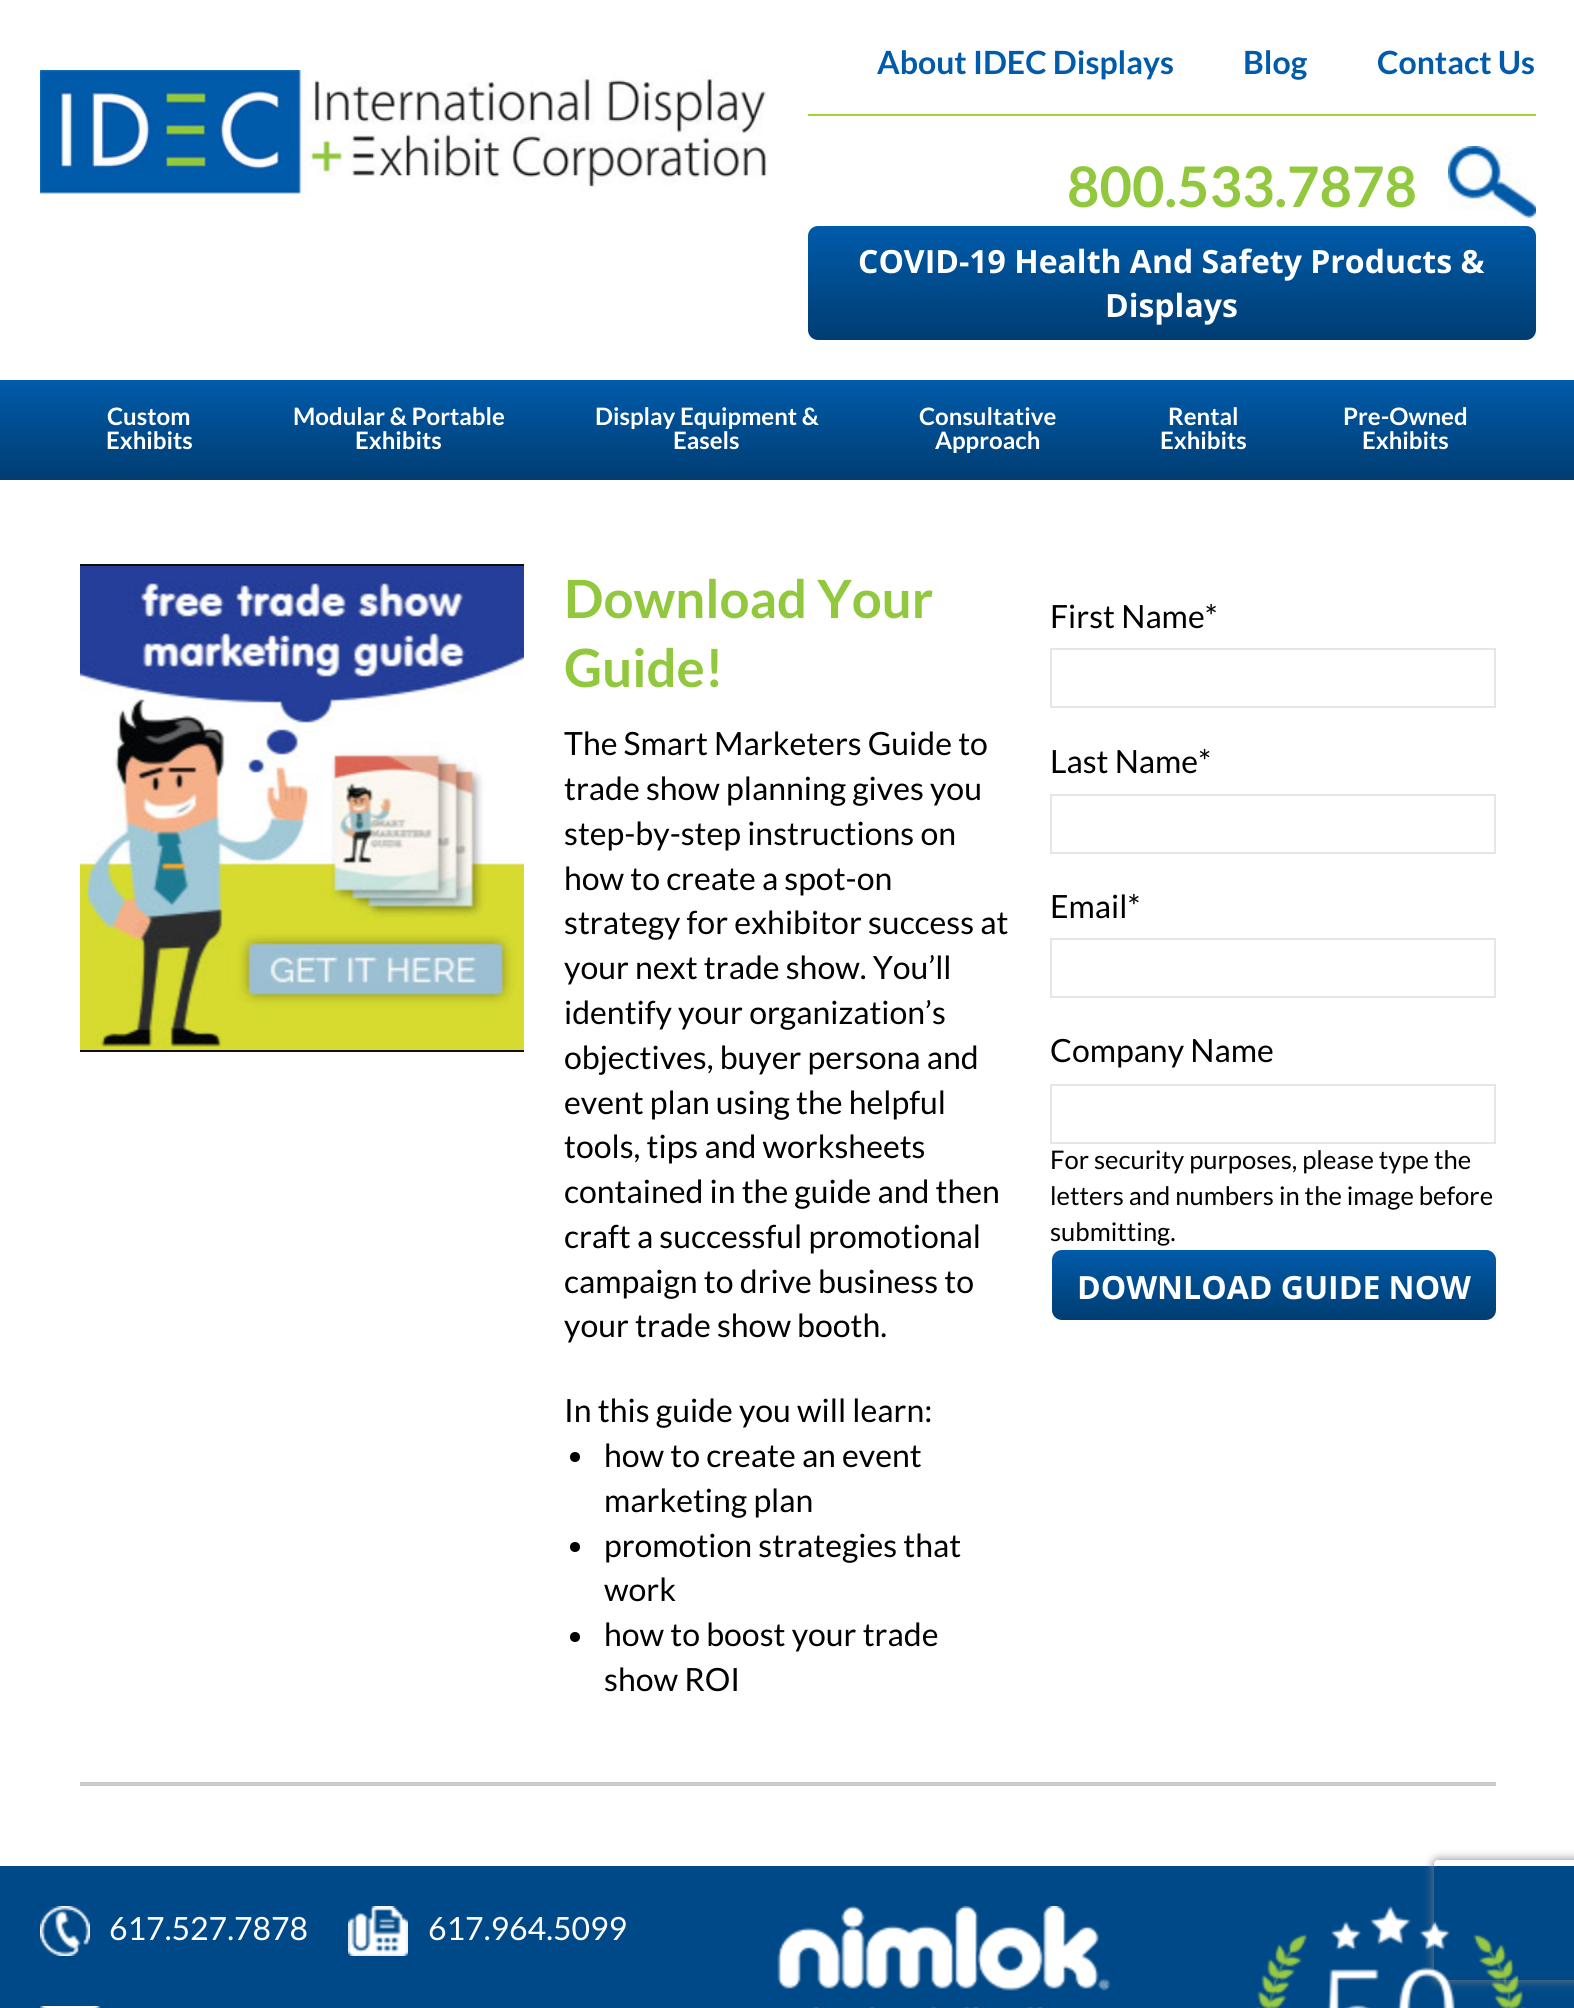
#include <cairo/cairo.h>
#include <math.h>
#include <stddef.h>


static void rounded_rect(cairo_t *cr, double x, double y, double w, double h, double r) {
  cairo_new_sub_path(cr);
  cairo_arc(cr, x + w - r, y + h - r, r, 0, M_PI / 2);
  cairo_arc(cr, x + r, y + h - r, r, M_PI / 2, M_PI);
  cairo_arc(cr, x + r, y + r, r, M_PI, 1.5 * M_PI);
  cairo_arc(cr, x + w - r, y + r, r, 1.5 * M_PI, 2 * M_PI);
  cairo_close_path(cr);
}

static void draw_shadow(cairo_t *cr, double x, double y, double w, double h, double r, double blur, double alpha) {
  cairo_push_group_with_content(cr, CAIRO_CONTENT_ALPHA);
  cairo_set_operator(cr, CAIRO_OPERATOR_SOURCE);
  for (int i = 15; i >= -15 && fmin(w, h) + blur * i / 3 > 0; i -= 2) {
    double e = blur * i / 6;
    cairo_set_source_rgba(cr, 0, 0, 0, alpha * erfc((i - 1) / 8.5) / 2);
    rounded_rect(cr, x - e, y - e, w + 2 * e, h + 2 * e, fmax(0, fmin(r + e + blur * .6, fmin(w, h) / 2 + e)));
    cairo_fill(cr);
  }
  cairo_pattern_t *soft = cairo_pop_group(cr);
  cairo_mask(cr, soft);
  cairo_pattern_destroy(soft);
}

static void draw_image(cairo_t *cr, const char *path, double x, double y, double w, double h) {
  cairo_surface_t *image = cairo_image_surface_create_from_png(path);
  cairo_save(cr);
  cairo_set_source_surface(cr, image, x, y);
  cairo_rectangle(cr, x, y, w, h);
  cairo_fill(cr);
  cairo_restore(cr);
  cairo_surface_destroy(image);
}

static void draw(cairo_t *cr) {
  cairo_pattern_t *gradient;
  cairo_set_source_rgb(cr, 1, 1, 1);
  cairo_paint(cr);
  draw_image(cr, "images/1.png", 40, 70, 728, 124);
  cairo_set_source_rgb(cr, 162 / 255.0, 211 / 255.0, 49 / 255.0);
  cairo_rectangle(cr, 808, 114, 728, 2);
  cairo_fill(cr);
  draw_image(cr, "images/2.png", 1448, 146, 88, 72);
  gradient = cairo_pattern_create_linear(1172, 226, 1172, 340);
  cairo_pattern_add_color_stop_rgba(gradient, 0, 0, 91 / 255.0, 170 / 255.0, 1);
  cairo_pattern_add_color_stop_rgba(gradient, 1, 0, 61 / 255.0, 114 / 255.0, 1);
  cairo_set_source(cr, gradient);
  cairo_pattern_destroy(gradient);
  rounded_rect(cr, 808, 226, 728, 114, 10);
  cairo_fill(cr);
  gradient = cairo_pattern_create_linear(787, 380, 787, 480);
  cairo_pattern_add_color_stop_rgba(gradient, 0, 0, 91 / 255.0, 170 / 255.0, 1);
  cairo_pattern_add_color_stop_rgba(gradient, 1, 0, 61 / 255.0, 114 / 255.0, 1);
  cairo_set_source(cr, gradient);
  cairo_pattern_destroy(gradient);
  cairo_rectangle(cr, 0, 380, 1574, 100);
  cairo_fill(cr);
  draw_image(cr, "images/3.png", 80, 564, 444, 488);
  cairo_set_source_rgb(cr, 0, 0, 0);
  cairo_arc(cr, 575, 1457, 5, 0, 2 * M_PI);
  cairo_fill(cr);
  cairo_arc(cr, 575, 1547, 5, 0, 2 * M_PI);
  cairo_fill(cr);
  cairo_arc(cr, 575, 1637, 5, 0, 2 * M_PI);
  cairo_fill(cr);
  cairo_rectangle(cr, 1051, 649, 444, 58);
  cairo_set_source_rgb(cr, 230 / 255.0, 230 / 255.0, 230 / 255.0);
  cairo_stroke(cr);
  cairo_rectangle(cr, 1051, 795, 444, 58);
  cairo_stroke(cr);
  cairo_rectangle(cr, 1051, 939, 444, 58);
  cairo_stroke(cr);
  cairo_rectangle(cr, 1051, 1085, 444, 58);
  cairo_stroke(cr);
  cairo_set_source_rgb(cr, 0, 73 / 255.0, 136 / 255.0);
  cairo_rectangle(cr, 0, 1866, 1574, 142);
  cairo_fill(cr);
  cairo_save(cr);
  cairo_set_fill_rule(cr, CAIRO_FILL_RULE_EVEN_ODD);
  cairo_new_path(cr);
  cairo_move_to(cr, 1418, 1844);
  cairo_line_to(cr, 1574, 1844);
  cairo_line_to(cr, 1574, 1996);
  cairo_line_to(cr, 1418, 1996);
  cairo_close_path(cr);
  cairo_move_to(cr, 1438, 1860);
  cairo_line_to(cr, 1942, 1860);
  cairo_curve_to(cr, 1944, 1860, 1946, 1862, 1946, 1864);
  cairo_line_to(cr, 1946, 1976);
  cairo_curve_to(cr, 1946, 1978, 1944, 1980, 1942, 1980);
  cairo_line_to(cr, 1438, 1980);
  cairo_curve_to(cr, 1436, 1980, 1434, 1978, 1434, 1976);
  cairo_line_to(cr, 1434, 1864);
  cairo_curve_to(cr, 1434, 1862, 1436, 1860, 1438, 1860);
  cairo_close_path(cr);
  cairo_clip(cr);
  cairo_set_source_rgb(cr, 128 / 255.0, 128 / 255.0, 128 / 255.0);
  draw_shadow(cr, 1434, 1860, 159, 120, 4, 5, 1);
  cairo_restore(cr);
  gradient = cairo_pattern_create_linear(1274, 1250, 1274, 1320);
  cairo_pattern_add_color_stop_rgba(gradient, 0, 0, 91 / 255.0, 170 / 255.0, 1);
  cairo_pattern_add_color_stop_rgba(gradient, 1, 0, 61 / 255.0, 114 / 255.0, 1);
  cairo_set_source(cr, gradient);
  cairo_pattern_destroy(gradient);
  rounded_rect(cr, 1052, 1250, 444, 70, 10);
  cairo_fill(cr);
  cairo_set_source_rgb(cr, 204 / 255.0, 204 / 255.0, 204 / 255.0);
  cairo_rectangle(cr, 80, 1782, 1416, 4);
  cairo_fill(cr);
  draw_image(cr, "images/4.png", 40, 1906, 50, 50);
  draw_image(cr, "images/5.png", 348, 1906, 60, 50);
  draw_image(cr, "images/6.png", 40, 2006, 60, 2);
  draw_image(cr, "images/7.png", 777, 1906, 334, 102);
  draw_image(cr, "images/8.png", 1255, 1906, 271, 102);
  cairo_select_font_face(cr, "Lato", CAIRO_FONT_SLANT_NORMAL, CAIRO_FONT_WEIGHT_BOLD);
  cairo_set_font_size(cr, 32);
  cairo_set_source_rgb(cr, 0, 91 / 255.0, 170 / 255.0);
  cairo_move_to(cr, 877, 74);
  cairo_show_text(cr, "About IDEC Displays");
  cairo_move_to(cr, 1243, 74);
  cairo_show_text(cr, "Blog");
  cairo_move_to(cr, 1377, 74);
  cairo_show_text(cr, "Contact Us");
  cairo_set_font_size(cr, 56);
  cairo_set_source_rgb(cr, 146 / 255.0, 200 / 255.0, 62 / 255.0);
  cairo_move_to(cr, 1067, 207);
  cairo_show_text(cr, "800.533.7878");
  cairo_select_font_face(cr, "Open Sans", CAIRO_FONT_SLANT_NORMAL, CAIRO_FONT_WEIGHT_BOLD);
  cairo_set_font_size(cr, 32);
  cairo_set_source_rgb(cr, 1, 1, 1);
  cairo_move_to(cr, 858, 273);
  cairo_show_text(cr, "COVID-19 Health And Safety Products &");
  cairo_move_to(cr, 1105, 317);
  cairo_show_text(cr, "Displays");
  cairo_select_font_face(cr, "Lato", CAIRO_FONT_SLANT_NORMAL, CAIRO_FONT_WEIGHT_BOLD);
  cairo_set_font_size(cr, 24);
  cairo_move_to(cr, 107, 425);
  cairo_show_text(cr, "Custom");
  cairo_move_to(cr, 106, 449);
  cairo_show_text(cr, "Exhibits");
  cairo_move_to(cr, 293, 425);
  cairo_show_text(cr, "Modular & Portable");
  cairo_move_to(cr, 355, 449);
  cairo_show_text(cr, "Exhibits");
  cairo_move_to(cr, 595, 425);
  cairo_show_text(cr, "Display Equipment &");
  cairo_move_to(cr, 673, 449);
  cairo_show_text(cr, "Easels");
  cairo_move_to(cr, 919, 425);
  cairo_show_text(cr, "Consultative");
  cairo_move_to(cr, 935, 449);
  cairo_show_text(cr, "Approach");
  cairo_move_to(cr, 1168, 425);
  cairo_show_text(cr, "Rental");
  cairo_move_to(cr, 1160, 449);
  cairo_show_text(cr, "Exhibits");
  cairo_move_to(cr, 1343, 425);
  cairo_show_text(cr, "Pre-Owned");
  cairo_move_to(cr, 1362, 449);
  cairo_show_text(cr, "Exhibits");
  cairo_set_font_size(cr, 52.75);
  cairo_set_source_rgb(cr, 146 / 255.0, 200 / 255.0, 62 / 255.0);
  cairo_move_to(cr, 564, 618);
  cairo_show_text(cr, "Download Your");
  cairo_move_to(cr, 564, 687);
  cairo_show_text(cr, "Guide!");
  cairo_select_font_face(cr, "Lato", CAIRO_FONT_SLANT_NORMAL, CAIRO_FONT_WEIGHT_NORMAL);
  cairo_set_font_size(cr, 32);
  cairo_set_source_rgb(cr, 0, 0, 0);
  cairo_move_to(cr, 564, 755);
  cairo_show_text(cr, "The Smart Marketers Guide to");
  cairo_move_to(cr, 564, 800);
  cairo_show_text(cr, "trade show planning gives you");
  cairo_move_to(cr, 564, 845);
  cairo_show_text(cr, "step-by-step instructions on");
  cairo_move_to(cr, 564, 890);
  cairo_show_text(cr, "how to create a spot-on");
  cairo_move_to(cr, 564, 934);
  cairo_show_text(cr, "strategy for exhibitor success at");
  cairo_move_to(cr, 564, 979);
  cairo_show_text(cr, "your next trade show. You’ll");
  cairo_move_to(cr, 564, 1024);
  cairo_show_text(cr, "identify your organization’s");
  cairo_move_to(cr, 564, 1069);
  cairo_show_text(cr, "objectives, buyer persona and");
  cairo_move_to(cr, 564, 1114);
  cairo_show_text(cr, "event plan using the helpful");
  cairo_move_to(cr, 564, 1158);
  cairo_show_text(cr, "tools, tips and worksheets");
  cairo_move_to(cr, 564, 1203);
  cairo_show_text(cr, "contained in the guide and then");
  cairo_move_to(cr, 564, 1248);
  cairo_show_text(cr, "craft a successful promotional");
  cairo_move_to(cr, 564, 1293);
  cairo_show_text(cr, "campaign to drive business to");
  cairo_move_to(cr, 564, 1337);
  cairo_show_text(cr, "your trade show booth.");
  cairo_move_to(cr, 564, 1422);
  cairo_show_text(cr, "In this guide you will learn:");
  cairo_move_to(cr, 604, 1467);
  cairo_show_text(cr, "how to create an event");
  cairo_move_to(cr, 604, 1512);
  cairo_show_text(cr, "marketing plan");
  cairo_move_to(cr, 604, 1557);
  cairo_show_text(cr, "promotion strategies that");
  cairo_move_to(cr, 604, 1601);
  cairo_show_text(cr, "work");
  cairo_move_to(cr, 604, 1646);
  cairo_show_text(cr, "how to boost your trade");
  cairo_move_to(cr, 604, 1691);
  cairo_show_text(cr, "show ROI");
  cairo_move_to(cr, 1050, 628);
  cairo_show_text(cr, "First Name*");
  cairo_move_to(cr, 1050, 773);
  cairo_show_text(cr, "Last Name*");
  cairo_move_to(cr, 1050, 918);
  cairo_show_text(cr, "Email*");
  cairo_move_to(cr, 1050, 1062);
  cairo_show_text(cr, "Company Name");
  cairo_set_font_size(cr, 25.6);
  cairo_move_to(cr, 1050, 1169);
  cairo_show_text(cr, "For security purposes, please type the");
  cairo_move_to(cr, 1050, 1205);
  cairo_show_text(cr, "letters and numbers in the image before");
  cairo_move_to(cr, 1050, 1241);
  cairo_show_text(cr, "submitting.");
  cairo_select_font_face(cr, "Open Sans", CAIRO_FONT_SLANT_NORMAL, CAIRO_FONT_WEIGHT_BOLD);
  cairo_set_font_size(cr, 32);
  cairo_set_source_rgb(cr, 1, 1, 1);
  cairo_move_to(cr, 1077, 1299);
  cairo_show_text(cr, "DOWNLOAD GUIDE NOW");
  cairo_select_font_face(cr, "Lato", CAIRO_FONT_SLANT_NORMAL, CAIRO_FONT_WEIGHT_NORMAL);
  cairo_move_to(cr, 109, 1940);
  cairo_show_text(cr, "617.527.7878");
  cairo_move_to(cr, 428, 1940);
  cairo_show_text(cr, "617.964.5099");
}

int main(void) {
  cairo_surface_t *surface = cairo_image_surface_create(CAIRO_FORMAT_RGB24, 1574, 2008);
  cairo_t *cr = cairo_create(surface);
  cairo_font_options_t *options = cairo_font_options_create();
  cairo_font_options_set_hint_metrics(options, CAIRO_HINT_METRICS_OFF);
  cairo_font_options_set_hint_style(options, CAIRO_HINT_STYLE_NONE);
  cairo_set_font_options(cr, options);
  cairo_set_miter_limit(cr, 4);
  draw(cr);
  cairo_surface_write_to_png(surface, "out.png");
  cairo_font_options_destroy(options);
  cairo_destroy(cr);
  cairo_surface_destroy(surface);
  return 0;
}
